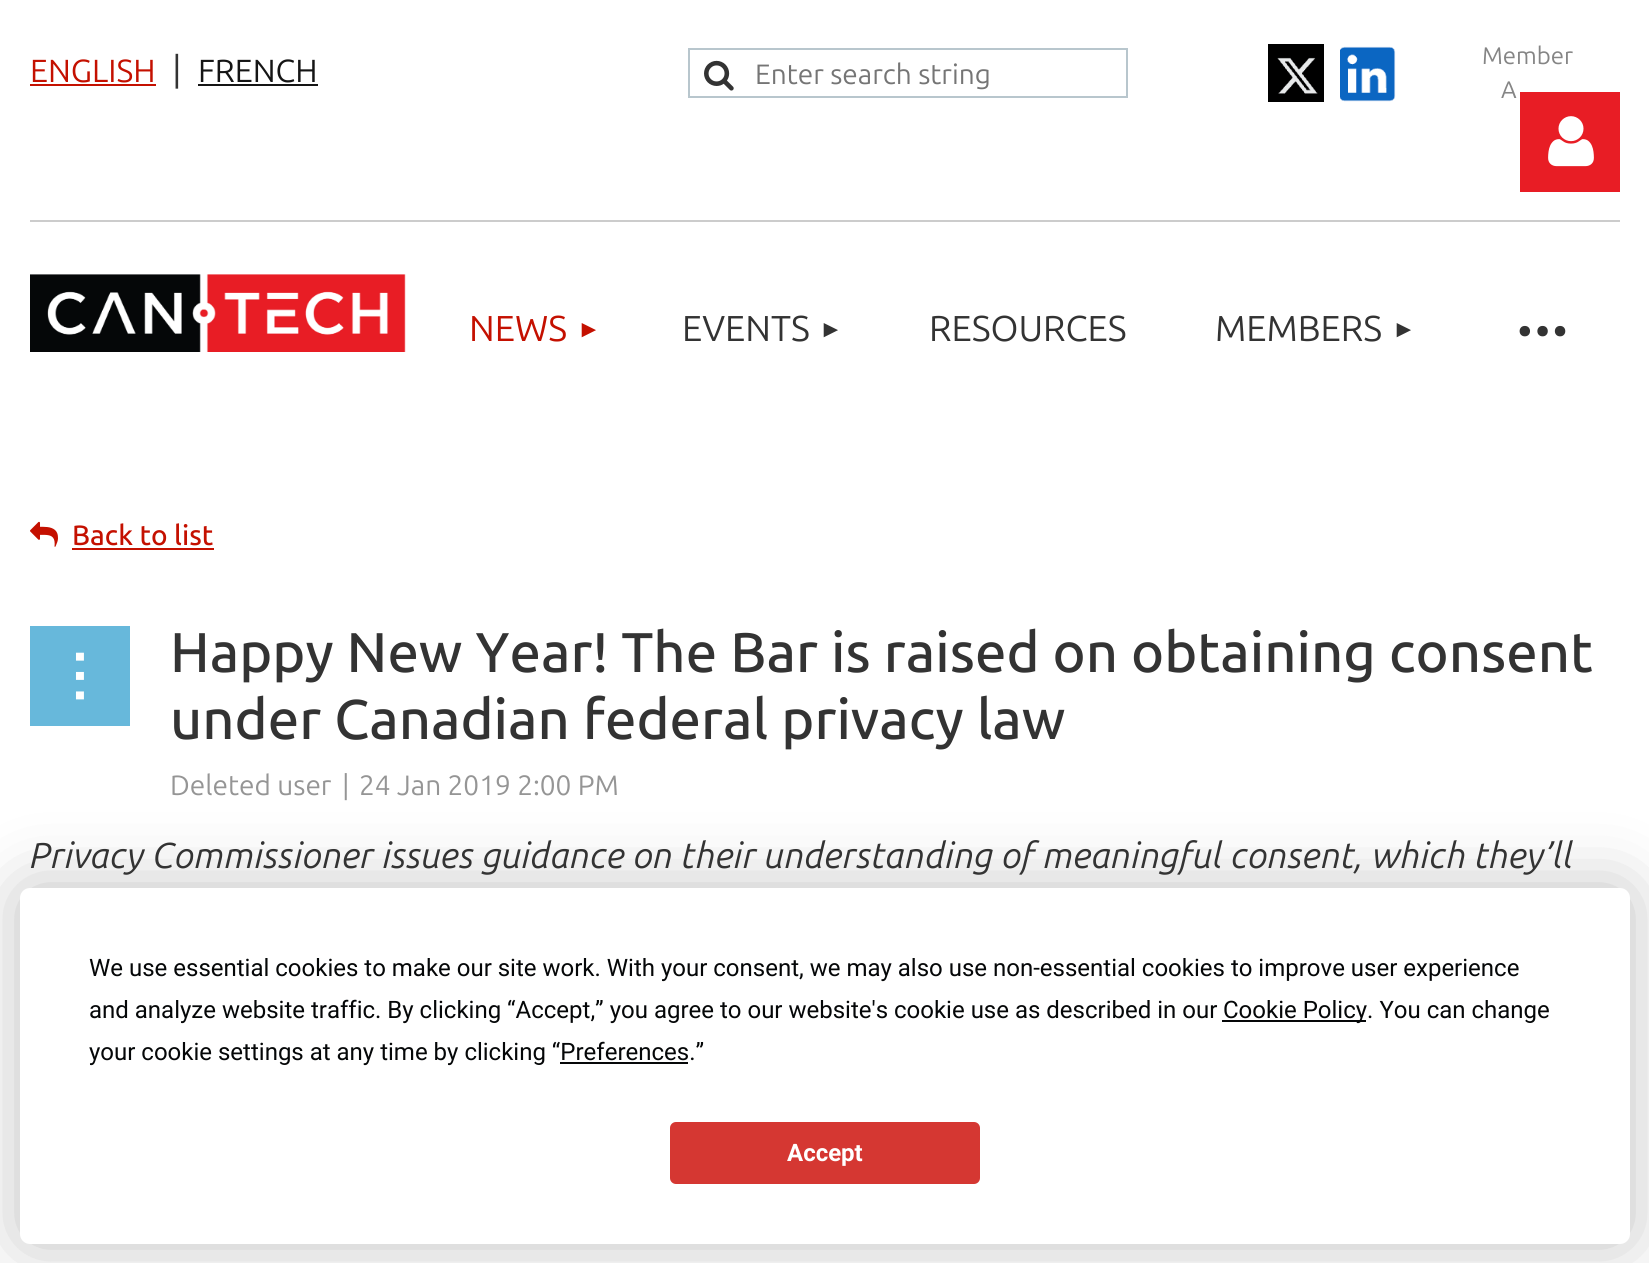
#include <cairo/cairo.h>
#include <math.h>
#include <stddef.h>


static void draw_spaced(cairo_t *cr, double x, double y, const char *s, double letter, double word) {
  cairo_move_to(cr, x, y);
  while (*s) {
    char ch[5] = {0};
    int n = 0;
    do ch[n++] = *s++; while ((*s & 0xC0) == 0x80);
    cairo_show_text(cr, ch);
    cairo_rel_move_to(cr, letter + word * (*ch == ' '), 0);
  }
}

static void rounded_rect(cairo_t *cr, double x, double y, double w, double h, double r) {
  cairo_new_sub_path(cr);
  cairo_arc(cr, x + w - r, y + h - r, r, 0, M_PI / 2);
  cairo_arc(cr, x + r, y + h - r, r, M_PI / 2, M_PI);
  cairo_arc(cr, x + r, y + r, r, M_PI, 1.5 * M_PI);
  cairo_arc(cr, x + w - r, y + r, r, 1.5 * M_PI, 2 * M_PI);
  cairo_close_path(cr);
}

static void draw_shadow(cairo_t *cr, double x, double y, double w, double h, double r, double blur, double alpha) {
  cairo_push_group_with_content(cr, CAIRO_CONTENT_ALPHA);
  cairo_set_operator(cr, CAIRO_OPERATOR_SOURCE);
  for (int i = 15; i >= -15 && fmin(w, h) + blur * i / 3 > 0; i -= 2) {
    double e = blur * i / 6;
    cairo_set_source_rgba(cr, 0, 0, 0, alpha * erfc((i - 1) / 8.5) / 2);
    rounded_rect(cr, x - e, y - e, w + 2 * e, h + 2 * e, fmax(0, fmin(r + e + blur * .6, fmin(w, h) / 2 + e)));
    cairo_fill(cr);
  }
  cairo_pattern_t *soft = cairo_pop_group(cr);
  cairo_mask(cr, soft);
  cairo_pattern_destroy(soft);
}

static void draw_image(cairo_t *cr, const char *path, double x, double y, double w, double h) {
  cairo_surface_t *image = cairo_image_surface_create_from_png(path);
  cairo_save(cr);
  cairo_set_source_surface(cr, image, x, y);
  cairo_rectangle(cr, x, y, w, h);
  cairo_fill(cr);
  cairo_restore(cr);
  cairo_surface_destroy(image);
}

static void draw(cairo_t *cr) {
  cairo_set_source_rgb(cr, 1, 1, 1);
  cairo_paint(cr);
  cairo_set_source_rgb(cr, 204 / 255.0, 204 / 255.0, 204 / 255.0);
  cairo_rectangle(cr, 30, 220, 1590, 2);
  cairo_fill(cr);
  cairo_set_source_rgb(cr, 196 / 255.0, 16 / 255.0, 0);
  cairo_rectangle(cr, 30, 84, 126, 2);
  cairo_fill(cr);
  cairo_set_source_rgb(cr, 21 / 255.0, 21 / 255.0, 21 / 255.0);
  cairo_rectangle(cr, 198, 84, 120, 2);
  cairo_fill(cr);
  cairo_rectangle(cr, 689, 49, 438, 48);
  cairo_set_source_rgb(cr, 184 / 255.0, 198 / 255.0, 205 / 255.0);
  cairo_stroke(cr);
  draw_image(cr, "images/1.png", 704, 60, 30, 31);
  draw_image(cr, "images/2.png", 1268, 44, 56, 58);
  draw_image(cr, "images/3.png", 1340, 46, 56, 56);
  cairo_set_source_rgb(cr, 232 / 255.0, 29 / 255.0, 37 / 255.0);
  cairo_rectangle(cr, 1520, 92, 100, 100);
  cairo_fill(cr);
  draw_image(cr, "images/4.png", 1548, 116, 46, 51);
  draw_image(cr, "images/5.png", 30, 274, 376, 78);
  draw_image(cr, "images/6.png", 30, 521, 28, 26);
  cairo_set_source_rgb(cr, 196 / 255.0, 16 / 255.0, 0);
  cairo_rectangle(cr, 72, 548, 142, 2);
  cairo_fill(cr);
  cairo_set_source_rgb(cr, 103 / 255.0, 184 / 255.0, 219 / 255.0);
  cairo_rectangle(cr, 30, 626, 100, 100);
  cairo_fill(cr);
  cairo_set_source_rgb(cr, 0, 0, 0);
  draw_shadow(cr, 20, 888, 1610, 356, 10, 35, 0.25);
  cairo_set_source_rgb(cr, 1, 1, 1);
  rounded_rect(cr, 20, 888, 1610, 356, 10);
  cairo_fill(cr);
  cairo_set_source_rgb(cr, 5 / 255.0, 7 / 255.0, 8 / 255.0);
  cairo_rectangle(cr, 1222, 1020, 144, 2);
  cairo_fill(cr);
  cairo_rectangle(cr, 560, 1062, 128, 2);
  cairo_fill(cr);
  cairo_set_source_rgb(cr, 213 / 255.0, 55 / 255.0, 50 / 255.0);
  rounded_rect(cr, 671, 1123, 308, 60, 5);
  cairo_fill_preserve(cr);
  cairo_stroke(cr);
  cairo_select_font_face(cr, "Ubuntu", CAIRO_FONT_SLANT_NORMAL, CAIRO_FONT_WEIGHT_NORMAL);
  cairo_set_font_size(cr, 32);
  cairo_set_source_rgb(cr, 196 / 255.0, 16 / 255.0, 0);
  cairo_move_to(cr, 30, 82);
  cairo_show_text(cr, "ENGLISH");
  cairo_set_font_size(cr, 36);
  cairo_set_source_rgb(cr, 51 / 255.0, 51 / 255.0, 51 / 255.0);
  cairo_move_to(cr, 172, 82);
  cairo_show_text(cr, "|");
  cairo_set_font_size(cr, 32);
  cairo_set_source_rgb(cr, 21 / 255.0, 21 / 255.0, 21 / 255.0);
  cairo_move_to(cr, 198, 82);
  cairo_show_text(cr, "FRENCH");
  cairo_set_font_size(cr, 28);
  cairo_set_source_rgb(cr, 117 / 255.0, 117 / 255.0, 117 / 255.0);
  cairo_move_to(cr, 755, 84);
  cairo_show_text(cr, "Enter search string");
  cairo_set_font_size(cr, 24);
  cairo_set_source_rgb(cr, 133 / 255.0, 133 / 255.0, 133 / 255.0);
  cairo_move_to(cr, 1482, 64);
  cairo_show_text(cr, "Member");
  cairo_move_to(cr, 1501, 98);
  cairo_show_text(cr, "A");
  cairo_set_font_size(cr, 36);
  cairo_set_source_rgb(cr, 196 / 255.0, 16 / 255.0, 0);
  cairo_move_to(cr, 469, 341);
  cairo_show_text(cr, "NEWS");
  cairo_select_font_face(cr, "Liberation Sans", CAIRO_FONT_SLANT_NORMAL, CAIRO_FONT_WEIGHT_NORMAL);
  cairo_set_font_size(cr, 24);
  cairo_move_to(cr, 577, 337);
  cairo_show_text(cr, "►");
  cairo_select_font_face(cr, "Ubuntu", CAIRO_FONT_SLANT_NORMAL, CAIRO_FONT_WEIGHT_NORMAL);
  cairo_set_font_size(cr, 36);
  cairo_set_source_rgb(cr, 51 / 255.0, 51 / 255.0, 51 / 255.0);
  cairo_move_to(cr, 682, 341);
  cairo_show_text(cr, "EVENTS");
  cairo_select_font_face(cr, "Liberation Sans", CAIRO_FONT_SLANT_NORMAL, CAIRO_FONT_WEIGHT_NORMAL);
  cairo_set_font_size(cr, 24);
  cairo_move_to(cr, 819, 337);
  cairo_show_text(cr, "►");
  cairo_select_font_face(cr, "Ubuntu", CAIRO_FONT_SLANT_NORMAL, CAIRO_FONT_WEIGHT_NORMAL);
  cairo_set_font_size(cr, 36);
  cairo_move_to(cr, 929, 341);
  cairo_show_text(cr, "RESOURCES");
  cairo_move_to(cr, 1215, 341);
  cairo_show_text(cr, "MEMBERS");
  cairo_select_font_face(cr, "Liberation Sans", CAIRO_FONT_SLANT_NORMAL, CAIRO_FONT_WEIGHT_NORMAL);
  cairo_set_font_size(cr, 24);
  cairo_move_to(cr, 1392, 337);
  cairo_show_text(cr, "►");
  cairo_select_font_face(cr, "Ubuntu", CAIRO_FONT_SLANT_NORMAL, CAIRO_FONT_WEIGHT_NORMAL);
  cairo_set_font_size(cr, 88);
  draw_spaced(cr, 1514, 357, "···", -4, 0);
  cairo_select_font_face(cr, "Ubuntu Medium", CAIRO_FONT_SLANT_NORMAL, CAIRO_FONT_WEIGHT_NORMAL);
  cairo_set_font_size(cr, 28);
  cairo_set_source_rgb(cr, 196 / 255.0, 16 / 255.0, 0);
  cairo_move_to(cr, 72, 545);
  cairo_show_text(cr, "Back to list");
  cairo_select_font_face(cr, "Liberation Serif", CAIRO_FONT_SLANT_NORMAL, CAIRO_FONT_WEIGHT_NORMAL);
  cairo_set_font_size(cr, 32);
  cairo_set_source_rgb(cr, 1, 1, 1);
  cairo_save(cr);
  cairo_translate(cr, 70, 651);
  cairo_rotate(cr, 90 * M_PI / 180);
  draw_spaced(cr, 0, 0, "▪▪▪", 8, 0);
  cairo_restore(cr);
  cairo_select_font_face(cr, "Ubuntu Medium", CAIRO_FONT_SLANT_NORMAL, CAIRO_FONT_WEIGHT_NORMAL);
  cairo_set_font_size(cr, 56);
  cairo_set_source_rgb(cr, 51 / 255.0, 51 / 255.0, 51 / 255.0);
  cairo_move_to(cr, 170, 672);
  cairo_show_text(cr, "Happy New Year! The Bar is raised on obtaining consent");
  cairo_move_to(cr, 170, 739);
  cairo_show_text(cr, "under Canadian federal privacy law");
  cairo_select_font_face(cr, "Ubuntu", CAIRO_FONT_SLANT_NORMAL, CAIRO_FONT_WEIGHT_NORMAL);
  cairo_set_font_size(cr, 28);
  cairo_set_source_rgb(cr, 149 / 255.0, 149 / 255.0, 149 / 255.0);
  cairo_move_to(cr, 170, 795);
  cairo_show_text(cr, "Deleted user");
  cairo_move_to(cr, 342, 795);
  cairo_show_text(cr, "|");
  cairo_move_to(cr, 359, 795);
  cairo_show_text(cr, "24 Jan 2019 2:00 PM");
  cairo_select_font_face(cr, "Ubuntu", CAIRO_FONT_SLANT_ITALIC, CAIRO_FONT_WEIGHT_NORMAL);
  cairo_set_font_size(cr, 36);
  cairo_set_source_rgb(cr, 51 / 255.0, 51 / 255.0, 51 / 255.0);
  cairo_move_to(cr, 30, 868);
  cairo_show_text(cr, "Privacy Commissioner issues guidance on their understanding of meaningful consent, which they’ll");
  cairo_select_font_face(cr, "Roboto", CAIRO_FONT_SLANT_NORMAL, CAIRO_FONT_WEIGHT_NORMAL);
  cairo_set_font_size(cr, 24);
  cairo_set_source_rgb(cr, 5 / 255.0, 7 / 255.0, 8 / 255.0);
  cairo_move_to(cr, 89, 976);
  cairo_show_text(cr, "We use essential cookies to make our site work. With your consent, we may also use non-essential cookies to improve user experience");
  cairo_move_to(cr, 89, 1018);
  cairo_show_text(cr, "and analyze website traffic. By clicking “Accept,” you agree to our website's cookie use as described in our");
  cairo_move_to(cr, 1223, 1018);
  cairo_show_text(cr, "Cookie Policy. You can change");
  cairo_move_to(cr, 89, 1060);
  cairo_show_text(cr, "your cookie settings at any time by clicking “Preferences.”");
  cairo_select_font_face(cr, "Roboto", CAIRO_FONT_SLANT_NORMAL, CAIRO_FONT_WEIGHT_BOLD);
  cairo_set_source_rgb(cr, 1, 1, 1);
  cairo_move_to(cr, 787, 1161);
  cairo_show_text(cr, "Accept");
}

int main(void) {
  cairo_surface_t *surface = cairo_image_surface_create(CAIRO_FORMAT_RGB24, 1649, 1263);
  cairo_t *cr = cairo_create(surface);
  cairo_font_options_t *options = cairo_font_options_create();
  cairo_font_options_set_hint_metrics(options, CAIRO_HINT_METRICS_OFF);
  cairo_font_options_set_hint_style(options, CAIRO_HINT_STYLE_NONE);
  cairo_set_font_options(cr, options);
  cairo_set_miter_limit(cr, 4);
  draw(cr);
  cairo_surface_write_to_png(surface, "out.png");
  cairo_font_options_destroy(options);
  cairo_destroy(cr);
  cairo_surface_destroy(surface);
  return 0;
}
